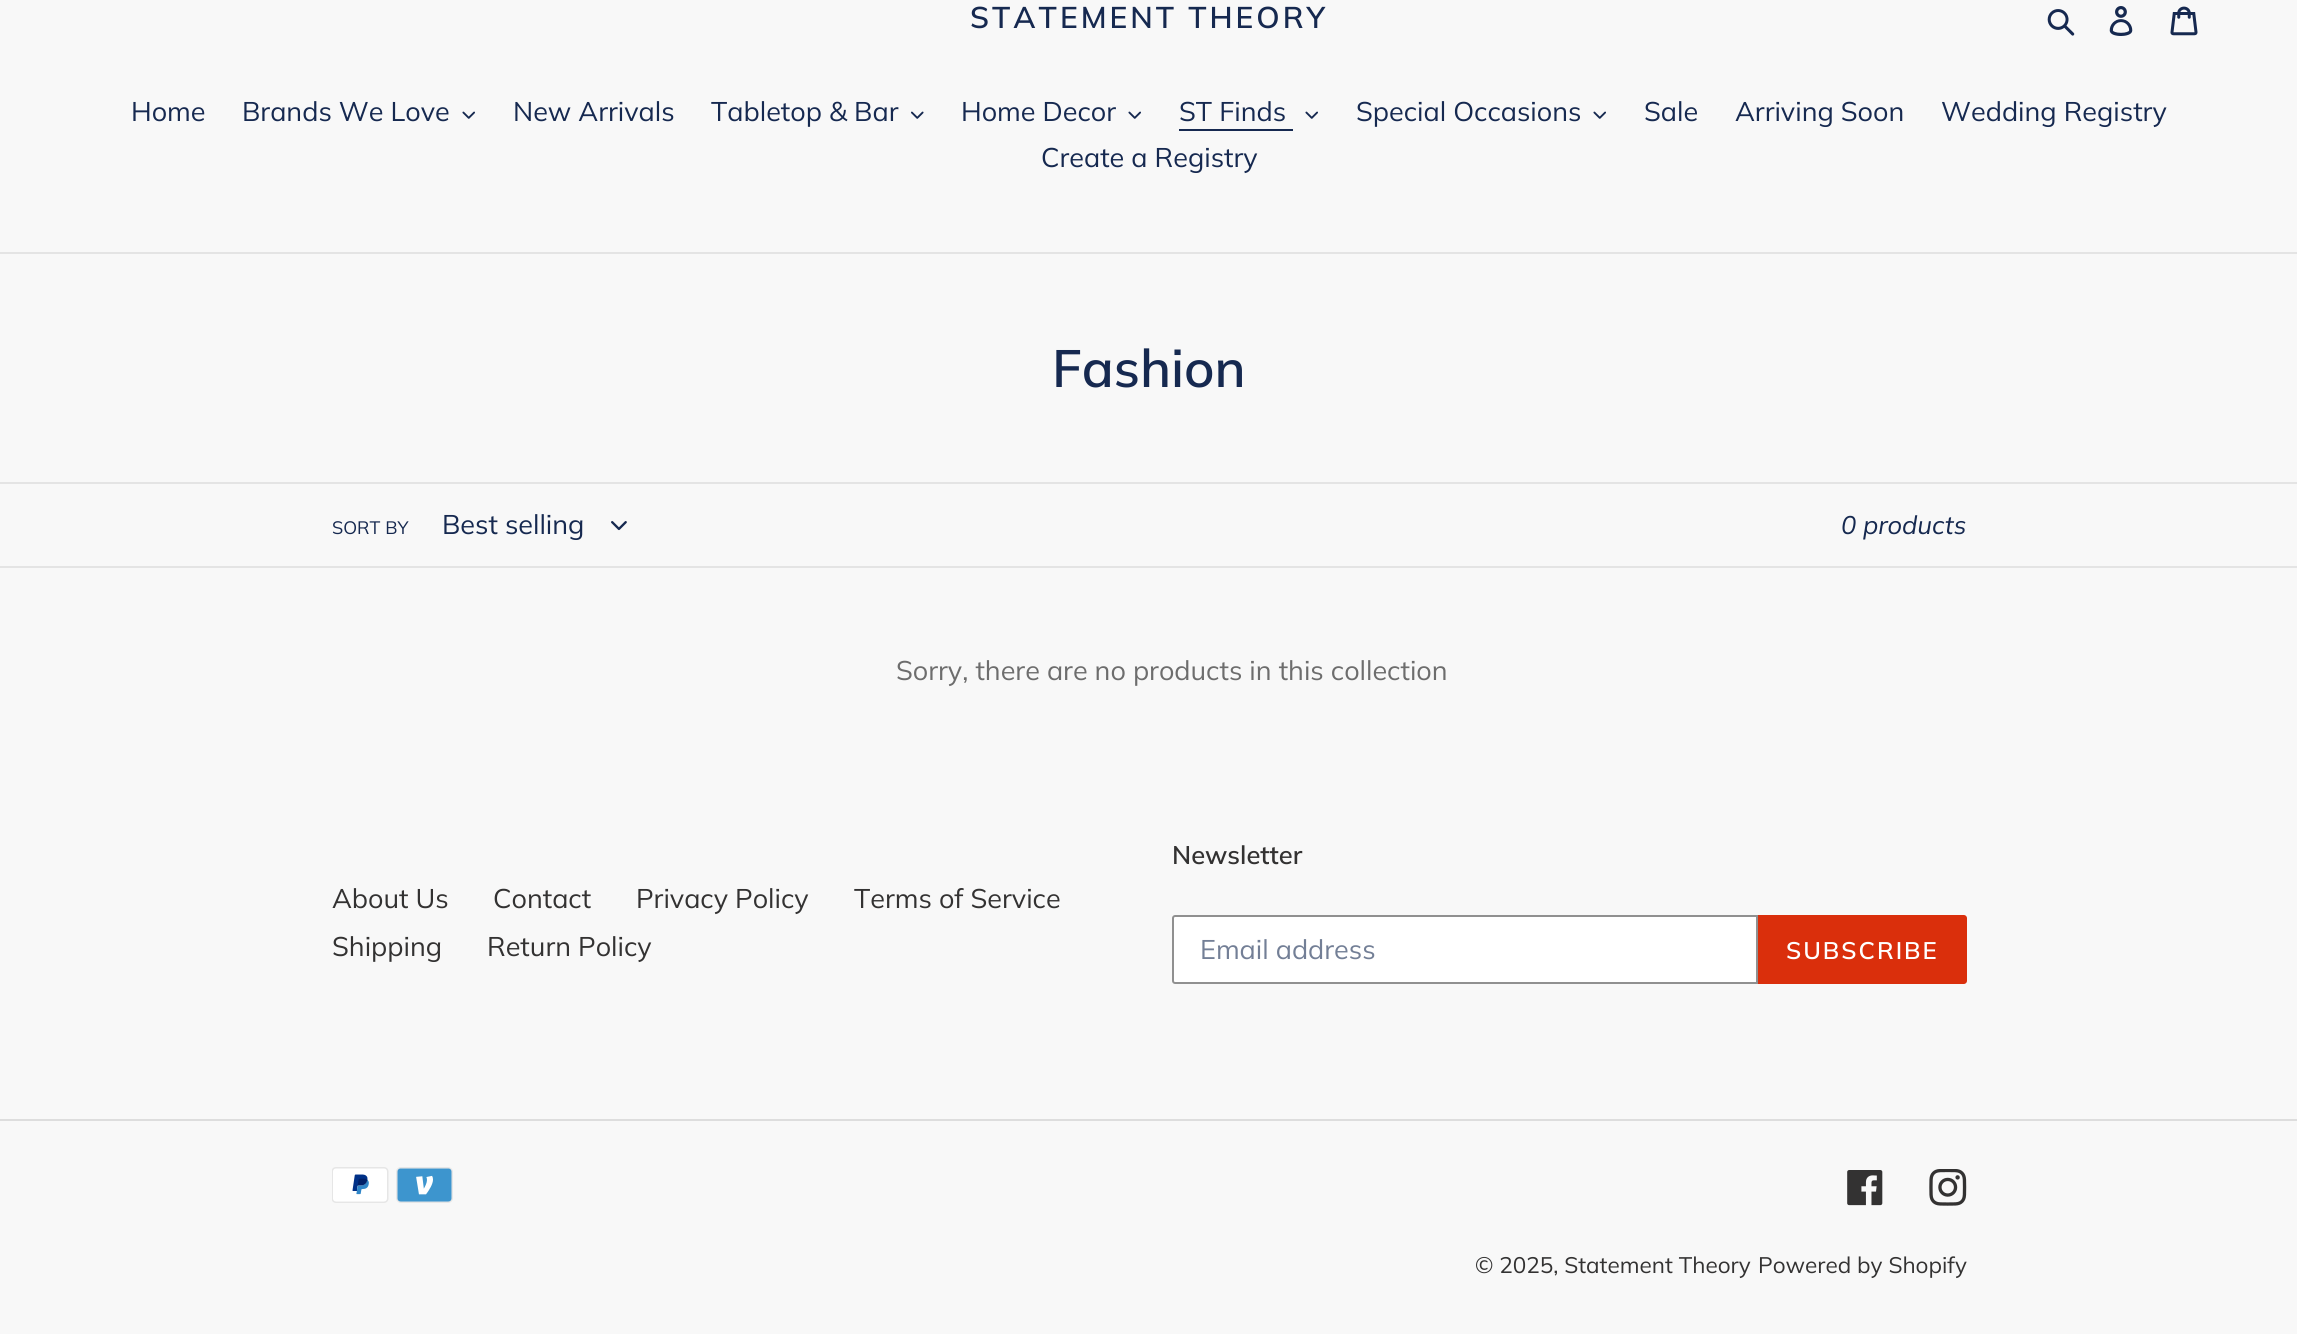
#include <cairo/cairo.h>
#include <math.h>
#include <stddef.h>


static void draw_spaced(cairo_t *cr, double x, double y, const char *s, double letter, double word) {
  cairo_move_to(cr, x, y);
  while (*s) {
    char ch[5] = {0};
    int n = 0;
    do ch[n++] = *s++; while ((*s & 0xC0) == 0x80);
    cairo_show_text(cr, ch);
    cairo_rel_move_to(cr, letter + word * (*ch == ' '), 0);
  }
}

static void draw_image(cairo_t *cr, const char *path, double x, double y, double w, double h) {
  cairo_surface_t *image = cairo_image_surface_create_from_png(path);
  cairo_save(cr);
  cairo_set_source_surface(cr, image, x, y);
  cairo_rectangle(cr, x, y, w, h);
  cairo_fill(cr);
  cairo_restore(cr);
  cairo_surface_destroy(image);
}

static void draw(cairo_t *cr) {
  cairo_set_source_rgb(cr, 248 / 255.0, 248 / 255.0, 248 / 255.0);
  cairo_paint(cr);
  draw_image(cr, "images/1.png", 2047, 9, 28, 27);
  draw_image(cr, "images/2.png", 2109, 6, 24, 30);
  draw_image(cr, "images/3.png", 2170, 6, 28, 30);
  cairo_set_source_rgb(cr, 228 / 255.0, 228 / 255.0, 228 / 255.0);
  cairo_rectangle(cr, 0, 252, 2297, 2);
  cairo_fill(cr);
  draw_image(cr, "images/4.png", 462, 111, 13, 8);
  draw_image(cr, "images/5.png", 911, 111, 13, 8);
  draw_image(cr, "images/4.png", 1128, 111, 13, 8);
  cairo_set_source_rgb(cr, 22 / 255.0, 41 / 255.0, 80 / 255.0);
  cairo_rectangle(cr, 1179, 129, 114, 2);
  cairo_fill(cr);
  draw_image(cr, "images/4.png", 1305, 111, 13, 8);
  draw_image(cr, "images/4.png", 1593, 111, 13, 8);
  cairo_set_source_rgb(cr, 228 / 255.0, 228 / 255.0, 228 / 255.0);
  cairo_rectangle(cr, 0, 482, 2297, 2);
  cairo_fill(cr);
  cairo_rectangle(cr, 0, 566, 2297, 2);
  cairo_fill(cr);
  draw_image(cr, "images/6.png", 611, 521, 16, 10);
  cairo_set_source_rgb(cr, 1, 1, 1);
  cairo_new_path(cr);
  cairo_move_to(cr, 1175, 916);
  cairo_line_to(cr, 1757, 916);
  cairo_line_to(cr, 1757, 983);
  cairo_line_to(cr, 1175, 983);
  cairo_curve_to(cr, 1174, 983, 1173, 982, 1173, 981);
  cairo_line_to(cr, 1173, 918);
  cairo_curve_to(cr, 1173, 917, 1174, 916, 1175, 916);
  cairo_close_path(cr);
  cairo_fill_preserve(cr);
  cairo_set_source_rgb(cr, 144 / 255.0, 144 / 255.0, 144 / 255.0);
  cairo_stroke(cr);
  cairo_set_source_rgb(cr, 218 / 255.0, 47 / 255.0, 12 / 255.0);
  cairo_new_path(cr);
  cairo_move_to(cr, 1758, 915);
  cairo_line_to(cr, 1964, 915);
  cairo_curve_to(cr, 1965.5, 915, 1967, 916.5, 1967, 918);
  cairo_line_to(cr, 1967, 981);
  cairo_curve_to(cr, 1967, 982.5, 1965.5, 984, 1964, 984);
  cairo_line_to(cr, 1758, 984);
  cairo_close_path(cr);
  cairo_fill(cr);
  cairo_set_source_rgb(cr, 221 / 255.0, 221 / 255.0, 221 / 255.0);
  cairo_rectangle(cr, 0, 1119, 2297, 2);
  cairo_fill(cr);
  draw_image(cr, "images/7.png", 332, 1167, 57, 36);
  draw_image(cr, "images/8.png", 396, 1167, 57, 36);
  draw_image(cr, "images/9.png", 1847, 1170, 36, 36);
  draw_image(cr, "images/10.png", 1929, 1169, 38, 37);
  cairo_select_font_face(cr, "Muli SemiBold", CAIRO_FONT_SLANT_NORMAL, CAIRO_FONT_WEIGHT_NORMAL);
  cairo_set_font_size(cr, 30);
  cairo_set_source_rgb(cr, 22 / 255.0, 41 / 255.0, 80 / 255.0);
  draw_spaced(cr, 970, 28, "STATEMENT THEORY", 3, 0);
  cairo_select_font_face(cr, "Muli", CAIRO_FONT_SLANT_NORMAL, CAIRO_FONT_WEIGHT_NORMAL);
  cairo_set_font_size(cr, 27);
  cairo_move_to(cr, 131, 121);
  cairo_show_text(cr, "Home");
  cairo_move_to(cr, 242, 121);
  cairo_show_text(cr, "Brands We Love");
  cairo_move_to(cr, 513, 121);
  cairo_show_text(cr, "New Arrivals");
  cairo_move_to(cr, 711, 121);
  cairo_show_text(cr, "Tabletop & Bar");
  cairo_move_to(cr, 961, 121);
  cairo_show_text(cr, "Home Decor");
  cairo_move_to(cr, 1179, 121);
  cairo_show_text(cr, "ST Finds");
  cairo_move_to(cr, 1356, 121);
  cairo_show_text(cr, "Special Occasions");
  cairo_move_to(cr, 1644, 121);
  cairo_show_text(cr, "Sale");
  cairo_move_to(cr, 1735, 121);
  cairo_show_text(cr, "Arriving Soon");
  cairo_move_to(cr, 1941, 121);
  cairo_show_text(cr, "Wedding Registry");
  cairo_move_to(cr, 1041, 167);
  cairo_show_text(cr, "Create a Registry");
  cairo_select_font_face(cr, "Muli SemiBold", CAIRO_FONT_SLANT_NORMAL, CAIRO_FONT_WEIGHT_NORMAL);
  cairo_set_font_size(cr, 52.5);
  cairo_move_to(cr, 1052, 387);
  cairo_show_text(cr, "Fashion");
  cairo_select_font_face(cr, "Muli", CAIRO_FONT_SLANT_NORMAL, CAIRO_FONT_WEIGHT_NORMAL);
  cairo_set_font_size(cr, 18);
  cairo_move_to(cr, 332, 534);
  cairo_show_text(cr, "SORT BY");
  cairo_set_font_size(cr, 27);
  cairo_move_to(cr, 442, 534);
  cairo_show_text(cr, "Best selling");
  cairo_select_font_face(cr, "Muli", CAIRO_FONT_SLANT_ITALIC, CAIRO_FONT_WEIGHT_NORMAL);
  cairo_set_font_size(cr, 25.5);
  cairo_move_to(cr, 1841, 534);
  cairo_show_text(cr, "0 products");
  cairo_select_font_face(cr, "Muli", CAIRO_FONT_SLANT_NORMAL, CAIRO_FONT_WEIGHT_NORMAL);
  cairo_set_font_size(cr, 27);
  cairo_set_source_rgb(cr, 109 / 255.0, 109 / 255.0, 109 / 255.0);
  cairo_move_to(cr, 896, 680);
  cairo_show_text(cr, "Sorry, there are no products in this collection");
  cairo_set_source_rgb(cr, 51 / 255.0, 50 / 255.0, 50 / 255.0);
  cairo_move_to(cr, 332, 908);
  cairo_show_text(cr, "About Us");
  cairo_move_to(cr, 493, 908);
  cairo_show_text(cr, "Contact");
  cairo_move_to(cr, 636, 908);
  cairo_show_text(cr, "Privacy Policy");
  cairo_move_to(cr, 854, 908);
  cairo_show_text(cr, "Terms of Service");
  cairo_move_to(cr, 332, 956);
  cairo_show_text(cr, "Shipping");
  cairo_move_to(cr, 487, 956);
  cairo_show_text(cr, "Return Policy");
  cairo_select_font_face(cr, "Muli SemiBold", CAIRO_FONT_SLANT_NORMAL, CAIRO_FONT_WEIGHT_NORMAL);
  cairo_set_font_size(cr, 25.5);
  cairo_move_to(cr, 1172, 864);
  cairo_show_text(cr, "Newsletter");
  cairo_select_font_face(cr, "Muli", CAIRO_FONT_SLANT_NORMAL, CAIRO_FONT_WEIGHT_NORMAL);
  cairo_set_font_size(cr, 27);
  cairo_set_source_rgb(cr, 115 / 255.0, 127 / 255.0, 150 / 255.0);
  cairo_move_to(cr, 1200, 959);
  cairo_show_text(cr, "Email address");
  cairo_select_font_face(cr, "Muli SemiBold", CAIRO_FONT_SLANT_NORMAL, CAIRO_FONT_WEIGHT_NORMAL);
  cairo_set_font_size(cr, 24);
  cairo_set_source_rgb(cr, 1, 1, 1);
  draw_spaced(cr, 1786, 959, "SUBSCRIBE", 2, 0);
  cairo_select_font_face(cr, "Muli", CAIRO_FONT_SLANT_NORMAL, CAIRO_FONT_WEIGHT_NORMAL);
  cairo_set_font_size(cr, 22.5);
  cairo_set_source_rgb(cr, 51 / 255.0, 50 / 255.0, 50 / 255.0);
  cairo_move_to(cr, 1475, 1273);
  cairo_show_text(cr, "© 2025, Statement Theory");
  cairo_move_to(cr, 1758, 1273);
  cairo_show_text(cr, "Powered by Shopify");
}

int main(void) {
  cairo_surface_t *surface = cairo_image_surface_create(CAIRO_FORMAT_RGB24, 2297, 1334);
  cairo_t *cr = cairo_create(surface);
  cairo_font_options_t *options = cairo_font_options_create();
  cairo_font_options_set_hint_metrics(options, CAIRO_HINT_METRICS_OFF);
  cairo_font_options_set_hint_style(options, CAIRO_HINT_STYLE_NONE);
  cairo_set_font_options(cr, options);
  cairo_set_miter_limit(cr, 4);
  draw(cr);
  cairo_surface_write_to_png(surface, "out.png");
  cairo_font_options_destroy(options);
  cairo_destroy(cr);
  cairo_surface_destroy(surface);
  return 0;
}
